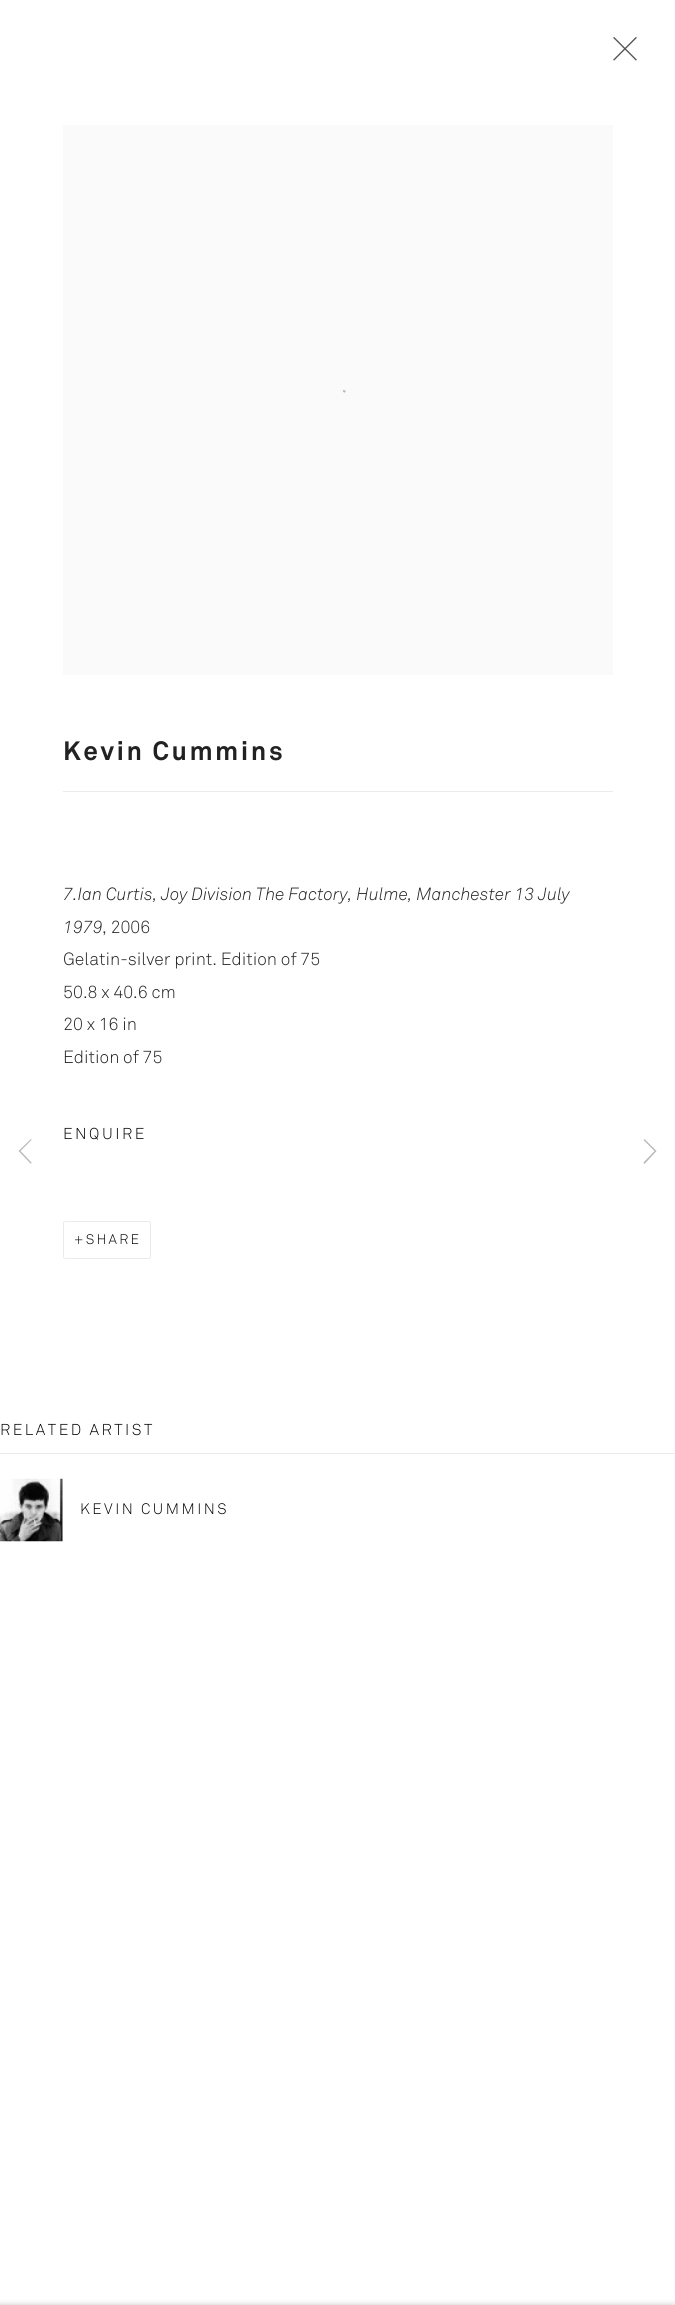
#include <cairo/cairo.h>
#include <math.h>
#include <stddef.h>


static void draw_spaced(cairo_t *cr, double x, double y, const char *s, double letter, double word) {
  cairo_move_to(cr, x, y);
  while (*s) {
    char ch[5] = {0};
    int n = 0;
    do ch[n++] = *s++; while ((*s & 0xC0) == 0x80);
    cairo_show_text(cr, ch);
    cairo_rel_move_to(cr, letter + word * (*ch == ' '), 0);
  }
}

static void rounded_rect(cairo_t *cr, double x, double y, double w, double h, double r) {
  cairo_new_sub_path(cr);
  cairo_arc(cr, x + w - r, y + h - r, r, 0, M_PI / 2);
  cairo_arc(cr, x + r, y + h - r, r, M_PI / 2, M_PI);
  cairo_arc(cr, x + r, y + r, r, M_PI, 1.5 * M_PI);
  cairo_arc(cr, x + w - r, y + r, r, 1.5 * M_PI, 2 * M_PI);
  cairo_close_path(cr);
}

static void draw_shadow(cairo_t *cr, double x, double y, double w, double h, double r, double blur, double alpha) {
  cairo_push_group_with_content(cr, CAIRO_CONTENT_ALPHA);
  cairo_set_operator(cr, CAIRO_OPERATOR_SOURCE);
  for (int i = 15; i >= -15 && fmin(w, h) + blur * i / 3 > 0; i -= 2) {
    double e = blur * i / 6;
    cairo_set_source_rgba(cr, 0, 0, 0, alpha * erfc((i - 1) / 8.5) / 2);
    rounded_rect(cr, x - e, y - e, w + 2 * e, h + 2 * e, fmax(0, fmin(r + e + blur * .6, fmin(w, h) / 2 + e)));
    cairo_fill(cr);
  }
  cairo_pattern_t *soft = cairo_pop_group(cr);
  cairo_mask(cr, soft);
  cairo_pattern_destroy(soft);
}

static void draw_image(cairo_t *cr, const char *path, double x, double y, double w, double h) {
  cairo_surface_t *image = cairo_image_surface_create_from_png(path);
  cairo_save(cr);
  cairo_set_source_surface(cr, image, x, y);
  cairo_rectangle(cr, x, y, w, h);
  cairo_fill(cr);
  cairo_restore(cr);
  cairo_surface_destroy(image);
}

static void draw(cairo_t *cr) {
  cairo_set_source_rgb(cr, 1, 1, 1);
  cairo_paint(cr);
  draw_image(cr, "images/1.png", 613, 37, 24, 24);
  cairo_set_source_rgb(cr, 250 / 255.0, 250 / 255.0, 250 / 255.0);
  cairo_rectangle(cr, 63, 125, 550, 550);
  cairo_fill(cr);
  cairo_new_path(cr);
  cairo_move_to(cr, 344, 391);
  cairo_line_to(cr, 344.5, 391.5);
  cairo_set_source_rgb(cr, 187 / 255.0, 187 / 255.0, 187 / 255.0);
  cairo_set_line_width(cr, 2.2);
  cairo_set_line_cap(cr, CAIRO_LINE_CAP_ROUND);
  cairo_stroke(cr);
  cairo_set_source_rgb(cr, 235 / 255.0, 235 / 255.0, 235 / 255.0);
  cairo_rectangle(cr, 63, 791, 550, 1);
  cairo_fill(cr);
  rounded_rect(cr, 63.5, 1221.5, 87, 37, 2);
  cairo_set_line_width(cr, 1);
  cairo_set_line_cap(cr, CAIRO_LINE_CAP_BUTT);
  cairo_stroke(cr);
  cairo_rectangle(cr, 0, 1453, 675, 1);
  cairo_fill(cr);
  draw_image(cr, "images/2.png", 0, 1478, 63, 64);
  cairo_set_source_rgb(cr, 185 / 255.0, 185 / 255.0, 185 / 255.0);
  cairo_new_path(cr);
  cairo_move_to(cr, 19.5, 1152);
  cairo_line_to(cr, 31, 1164);
  cairo_line_to(cr, 31.5, 1162.5);
  cairo_line_to(cr, 20.5, 1151);
  cairo_line_to(cr, 31.5, 1140);
  cairo_line_to(cr, 31, 1139);
  cairo_line_to(cr, 18.5, 1151);
  cairo_close_path(cr);
  cairo_fill(cr);
  cairo_new_path(cr);
  cairo_move_to(cr, 656.5, 1151);
  cairo_line_to(cr, 644.5, 1139);
  cairo_line_to(cr, 643.5, 1140);
  cairo_line_to(cr, 654.5, 1151);
  cairo_line_to(cr, 643.5, 1162.5);
  cairo_line_to(cr, 644.5, 1164);
  cairo_close_path(cr);
  cairo_fill(cr);
  cairo_set_source_rgb(cr, 0, 0, 0);
  draw_shadow(cr, 0, 2305, 675, 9, 0, 3, 0.23);
  cairo_select_font_face(cr, "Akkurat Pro", CAIRO_FONT_SLANT_NORMAL, CAIRO_FONT_WEIGHT_BOLD);
  cairo_set_font_size(cr, 26.25);
  cairo_set_source_rgb(cr, 34 / 255.0, 34 / 255.0, 34 / 255.0);
  draw_spaced(cr, 63, 760, "Kevin Cummins", 2.5, 0);
  cairo_select_font_face(cr, "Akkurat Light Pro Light", CAIRO_FONT_SLANT_ITALIC, CAIRO_FONT_WEIGHT_NORMAL);
  cairo_set_font_size(cr, 17.5);
  cairo_move_to(cr, 63, 900);
  cairo_show_text(cr, "7.Ian Curtis, Joy Division The Factory, Hulme, Manchester 13 July");
  cairo_move_to(cr, 63, 933);
  cairo_show_text(cr, "1979");
  cairo_select_font_face(cr, "Akkurat Light Pro Light", CAIRO_FONT_SLANT_NORMAL, CAIRO_FONT_WEIGHT_NORMAL);
  cairo_move_to(cr, 102, 933);
  cairo_show_text(cr, ", 2006");
  cairo_move_to(cr, 63, 965);
  cairo_show_text(cr, "Gelatin-silver print. Edition of 75");
  cairo_move_to(cr, 63, 998);
  cairo_show_text(cr, "50.8 x 40.6 cm");
  cairo_move_to(cr, 63, 1030);
  cairo_show_text(cr, "20 x 16 in");
  cairo_move_to(cr, 63, 1063);
  cairo_show_text(cr, "Edition of 75");
  cairo_set_font_size(cr, 15.6);
  cairo_set_source_rgb(cr, 0, 0, 0);
  draw_spaced(cr, 63, 1139, "ENQUIRE", 2.5, 0);
  cairo_set_font_size(cr, 13.75);
  draw_spaced(cr, 74, 1244, "+SHARE", 2.25, 0);
  cairo_set_font_size(cr, 15.6);
  draw_spaced(cr, 0, 1435, "RELATED ARTIST", 2.5, 0);
  cairo_set_font_size(cr, 15);
  draw_spaced(cr, 80, 1514, "KEVIN CUMMINS", 2.5, 0);
}

int main(void) {
  cairo_surface_t *surface = cairo_image_surface_create(CAIRO_FORMAT_RGB24, 675, 2305);
  cairo_t *cr = cairo_create(surface);
  cairo_font_options_t *options = cairo_font_options_create();
  cairo_font_options_set_hint_metrics(options, CAIRO_HINT_METRICS_OFF);
  cairo_font_options_set_hint_style(options, CAIRO_HINT_STYLE_NONE);
  cairo_set_font_options(cr, options);
  cairo_set_miter_limit(cr, 4);
  draw(cr);
  cairo_surface_write_to_png(surface, "out.png");
  cairo_font_options_destroy(options);
  cairo_destroy(cr);
  cairo_surface_destroy(surface);
  return 0;
}
